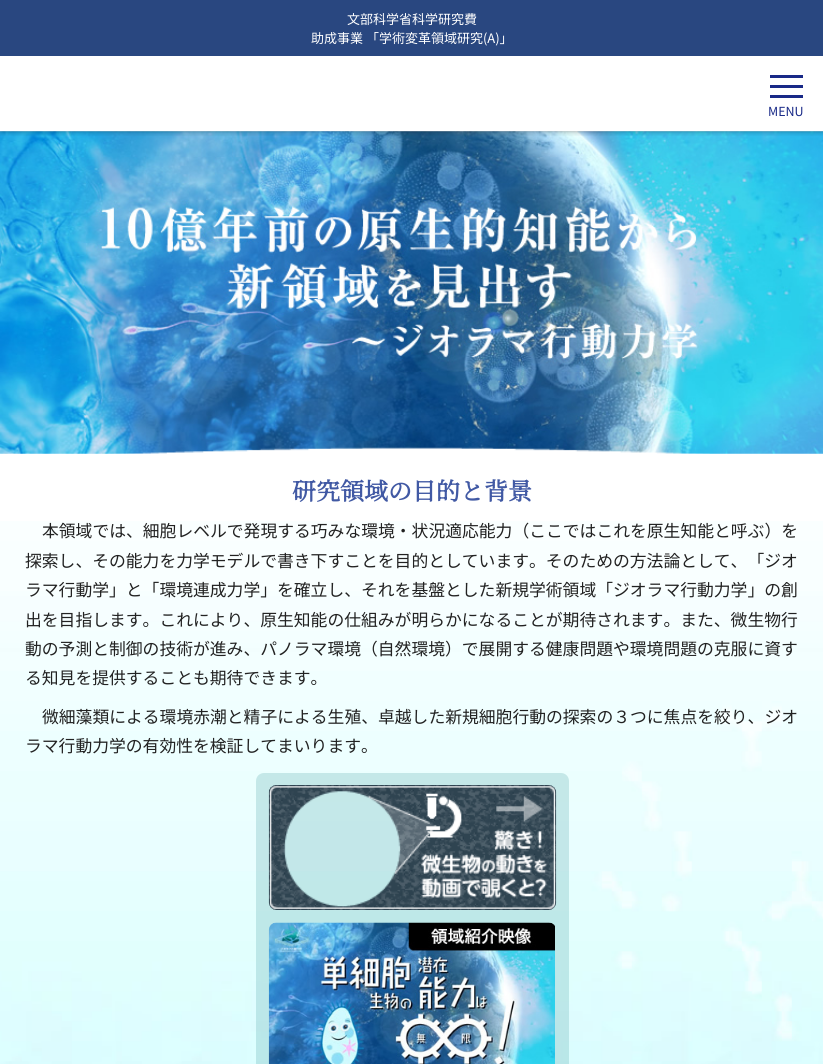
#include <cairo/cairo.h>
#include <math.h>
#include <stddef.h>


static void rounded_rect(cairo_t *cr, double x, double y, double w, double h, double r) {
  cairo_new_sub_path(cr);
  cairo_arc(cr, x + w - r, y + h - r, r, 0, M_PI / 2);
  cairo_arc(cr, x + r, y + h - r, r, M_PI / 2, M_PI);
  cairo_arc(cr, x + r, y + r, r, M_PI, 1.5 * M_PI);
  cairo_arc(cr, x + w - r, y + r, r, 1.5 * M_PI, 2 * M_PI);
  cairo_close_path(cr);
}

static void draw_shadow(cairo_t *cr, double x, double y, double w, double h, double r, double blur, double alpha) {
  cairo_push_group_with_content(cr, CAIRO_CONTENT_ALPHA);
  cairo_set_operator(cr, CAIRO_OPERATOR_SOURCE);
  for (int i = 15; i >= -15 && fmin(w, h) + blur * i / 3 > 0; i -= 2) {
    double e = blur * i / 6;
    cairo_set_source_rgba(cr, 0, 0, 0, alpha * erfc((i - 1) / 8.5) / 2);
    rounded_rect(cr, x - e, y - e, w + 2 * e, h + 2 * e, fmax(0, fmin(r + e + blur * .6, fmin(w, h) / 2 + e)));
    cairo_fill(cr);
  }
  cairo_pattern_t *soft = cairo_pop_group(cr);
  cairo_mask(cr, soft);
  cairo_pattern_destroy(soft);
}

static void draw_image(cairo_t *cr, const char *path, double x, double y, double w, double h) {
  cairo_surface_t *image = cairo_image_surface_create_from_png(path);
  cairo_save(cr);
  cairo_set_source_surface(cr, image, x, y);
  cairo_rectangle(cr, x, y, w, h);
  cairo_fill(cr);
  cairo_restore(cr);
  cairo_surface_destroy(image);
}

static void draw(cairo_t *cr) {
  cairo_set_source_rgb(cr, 1, 1, 1);
  cairo_paint(cr);
  draw_image(cr, "images/1.png", 0, 131, 823, 323);
  cairo_save(cr);
  cairo_rectangle(cr, 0, 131, 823, 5);
  cairo_clip(cr);
  cairo_set_source_rgb(cr, 0, 0, 0);
  draw_shadow(cr, 0, 0, 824, 131, 0, 3, 0.4);
  cairo_restore(cr);
  cairo_set_source_rgb(cr, 41 / 255.0, 71 / 255.0, 128 / 255.0);
  cairo_rectangle(cr, 0, 0, 823, 56);
  cairo_fill(cr);
  cairo_set_source_rgb(cr, 24 / 255.0, 41 / 255.0, 135 / 255.0);
  cairo_rectangle(cr, 770, 75, 33, 3);
  cairo_fill(cr);
  cairo_rectangle(cr, 770, 85, 33, 3);
  cairo_fill(cr);
  cairo_rectangle(cr, 770, 95, 33, 3);
  cairo_fill(cr);
  draw_image(cr, "images/2.png", 0, 521, 823, 543);
  draw_image(cr, "images/3.png", 114, 447, 596, 7);
  cairo_set_source_rgba(cr, 106 / 255.0, 177 / 255.0, 181 / 255.0, 0.3);
  rounded_rect(cr, 256, 773, 313, 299, 8);
  cairo_fill(cr);
  draw_image(cr, "images/4.png", 268, 785, 289, 125);
  draw_image(cr, "images/5.png", 268, 922, 287, 142);
  cairo_select_font_face(cr, "Noto Sans JP", CAIRO_FONT_SLANT_NORMAL, CAIRO_FONT_WEIGHT_NORMAL);
  cairo_set_font_size(cr, 13);
  cairo_set_source_rgb(cr, 1, 1, 1);
  cairo_move_to(cr, 347, 24);
  cairo_show_text(cr, "文部科学省科学研究費");
  cairo_move_to(cr, 311, 43);
  cairo_show_text(cr, "助成事業 「学術変革領域研究(A)」");
  cairo_set_font_size(cr, 12.5);
  cairo_set_source_rgb(cr, 24 / 255.0, 41 / 255.0, 135 / 255.0);
  cairo_move_to(cr, 768, 116);
  cairo_show_text(cr, "MENU");
  cairo_select_font_face(cr, "Noto Serif JP", CAIRO_FONT_SLANT_NORMAL, CAIRO_FONT_WEIGHT_BOLD);
  cairo_set_font_size(cr, 24);
  cairo_set_source_rgb(cr, 65 / 255.0, 89 / 255.0, 164 / 255.0);
  cairo_move_to(cr, 292, 500);
  cairo_show_text(cr, "研究領域の目的と背景");
  cairo_select_font_face(cr, "Noto Sans JP", CAIRO_FONT_SLANT_NORMAL, CAIRO_FONT_WEIGHT_NORMAL);
  cairo_set_font_size(cr, 16.8);
  cairo_set_source_rgb(cr, 34 / 255.0, 34 / 255.0, 34 / 255.0);
  cairo_move_to(cr, 42, 537);
  cairo_show_text(cr, "本領域では、細胞レベルで発現する巧みな環境・状況適応能力（ここではこれを原生知能と呼ぶ）を");
  cairo_move_to(cr, 25, 567);
  cairo_show_text(cr, "探索し、その能力を力学モデルで書き下すことを目的としています。そのための方法論として、「ジオ");
  cairo_move_to(cr, 25, 596);
  cairo_show_text(cr, "ラマ行動学」と「環境連成力学」を確立し、それを基盤とした新規学術領域「ジオラマ行動力学」の創");
  cairo_move_to(cr, 25, 626);
  cairo_show_text(cr, "出を目指します。これにより、原生知能の仕組みが明らかになることが期待されます。また、微生物行");
  cairo_move_to(cr, 25, 655);
  cairo_show_text(cr, "動の予測と制御の技術が進み、パノラマ環境（自然環境）で展開する健康問題や環境問題の克服に資す");
  cairo_move_to(cr, 25, 684);
  cairo_show_text(cr, "る知見を提供することも期待できます。");
  cairo_move_to(cr, 42, 723);
  cairo_show_text(cr, "微細藻類による環境赤潮と精子による生殖、卓越した新規細胞行動の探索の３つに焦点を絞り、ジオ");
  cairo_move_to(cr, 25, 752);
  cairo_show_text(cr, "ラマ行動力学の有効性を検証してまいります。");
}

int main(void) {
  cairo_surface_t *surface = cairo_image_surface_create(CAIRO_FORMAT_RGB24, 823, 1064);
  cairo_t *cr = cairo_create(surface);
  cairo_font_options_t *options = cairo_font_options_create();
  cairo_font_options_set_hint_metrics(options, CAIRO_HINT_METRICS_OFF);
  cairo_font_options_set_hint_style(options, CAIRO_HINT_STYLE_NONE);
  cairo_set_font_options(cr, options);
  cairo_set_miter_limit(cr, 4);
  draw(cr);
  cairo_surface_write_to_png(surface, "out.png");
  cairo_font_options_destroy(options);
  cairo_destroy(cr);
  cairo_surface_destroy(surface);
  return 0;
}
